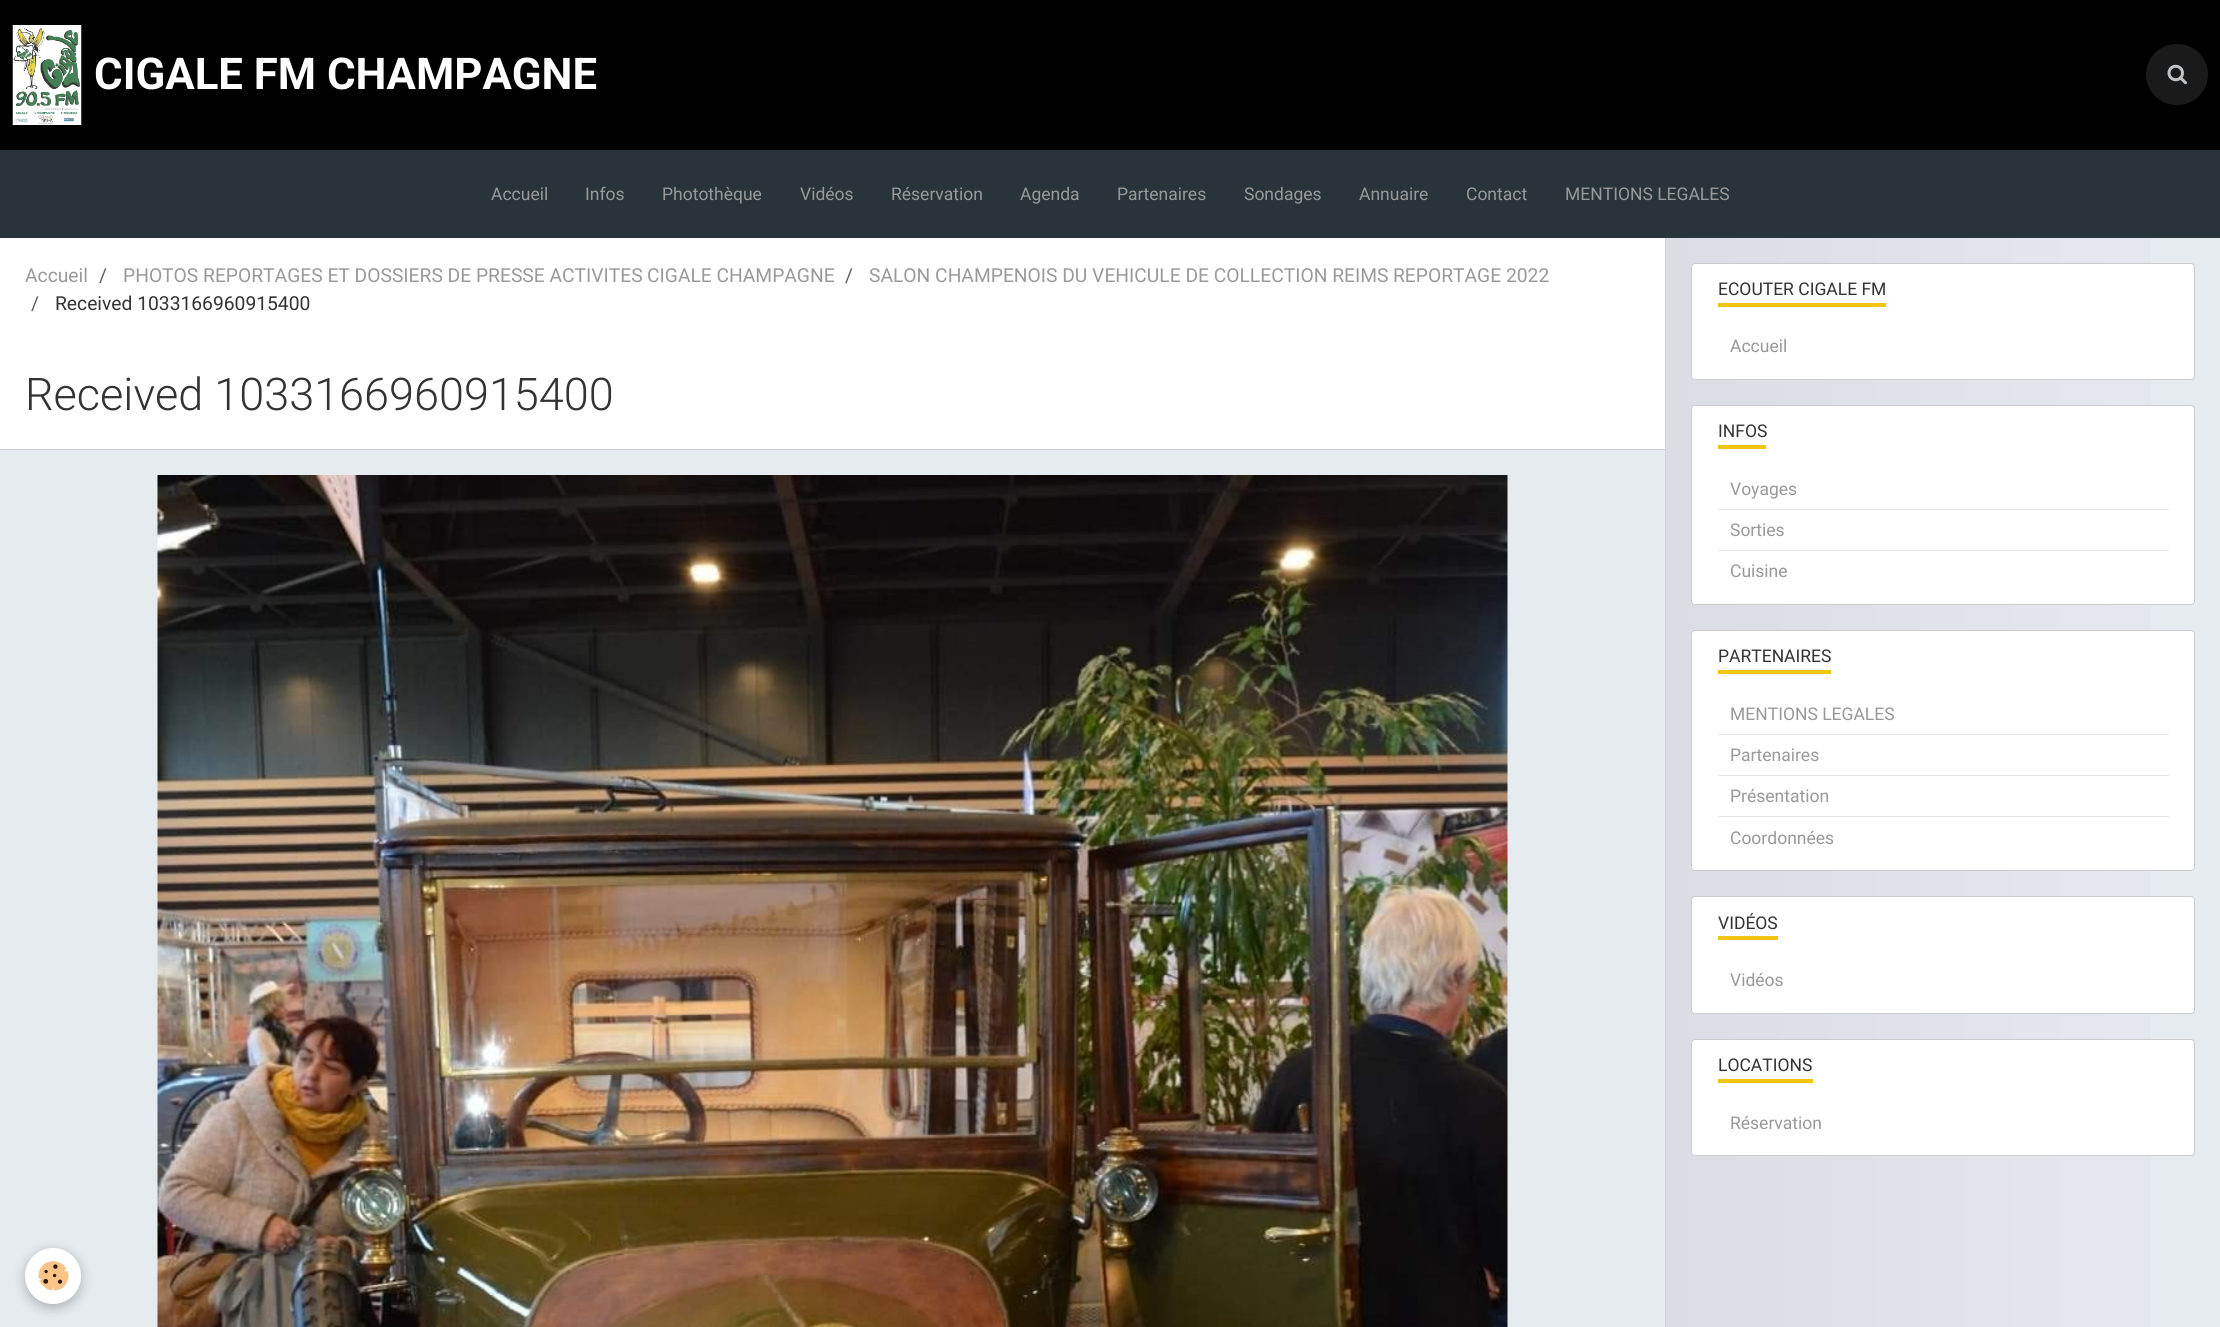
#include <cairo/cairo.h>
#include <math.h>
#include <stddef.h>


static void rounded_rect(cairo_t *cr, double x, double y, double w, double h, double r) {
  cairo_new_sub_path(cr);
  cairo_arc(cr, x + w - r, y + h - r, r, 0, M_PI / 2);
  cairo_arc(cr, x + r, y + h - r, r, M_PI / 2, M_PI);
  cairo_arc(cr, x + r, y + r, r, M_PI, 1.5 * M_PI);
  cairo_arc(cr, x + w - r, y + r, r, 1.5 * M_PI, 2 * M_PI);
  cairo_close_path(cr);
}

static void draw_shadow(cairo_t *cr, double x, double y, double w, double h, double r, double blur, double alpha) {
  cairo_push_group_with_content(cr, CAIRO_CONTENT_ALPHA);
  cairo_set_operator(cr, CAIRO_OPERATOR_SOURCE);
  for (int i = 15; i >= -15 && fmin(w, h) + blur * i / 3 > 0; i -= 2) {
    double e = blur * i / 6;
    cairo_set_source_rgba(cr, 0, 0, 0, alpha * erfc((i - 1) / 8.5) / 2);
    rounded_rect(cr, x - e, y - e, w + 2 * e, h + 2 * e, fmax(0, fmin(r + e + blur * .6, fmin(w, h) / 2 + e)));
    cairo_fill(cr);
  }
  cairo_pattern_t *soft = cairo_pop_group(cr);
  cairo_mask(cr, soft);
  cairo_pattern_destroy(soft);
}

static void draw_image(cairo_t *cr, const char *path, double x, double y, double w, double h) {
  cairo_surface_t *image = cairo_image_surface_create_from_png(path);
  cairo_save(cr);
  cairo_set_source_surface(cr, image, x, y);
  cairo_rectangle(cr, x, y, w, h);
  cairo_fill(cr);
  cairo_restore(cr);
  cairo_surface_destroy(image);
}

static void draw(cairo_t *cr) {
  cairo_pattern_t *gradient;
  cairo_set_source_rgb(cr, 229 / 255.0, 235 / 255.0, 239 / 255.0);
  cairo_paint(cr);
  cairo_set_source_rgb(cr, 0, 0, 0);
  cairo_rectangle(cr, 0, 0, 2220, 150);
  cairo_fill(cr);
  draw_image(cr, "images/1.png", 12, 25, 70, 100);
  cairo_set_source_rgb(cr, 26 / 255.0, 26 / 255.0, 26 / 255.0);
  rounded_rect(cr, 2146, 44, 62, 61, 30.5);
  cairo_fill(cr);
  draw_image(cr, "images/2.png", 2167, 64, 20, 21);
  cairo_set_source_rgb(cr, 41 / 255.0, 52 / 255.0, 58 / 255.0);
  cairo_rectangle(cr, 0, 150, 2220, 88);
  cairo_fill(cr);
  cairo_set_source_rgb(cr, 1, 1, 1);
  cairo_rectangle(cr, 0, 238, 1665, 211);
  cairo_fill(cr);
  cairo_set_source_rgb(cr, 204 / 255.0, 204 / 255.0, 204 / 255.0);
  cairo_rectangle(cr, 0, 449, 1665, 1);
  cairo_fill(cr);
  draw_image(cr, "images/3.png", 157, 475, 1351, 852);
  cairo_set_source_rgb(cr, 206 / 255.0, 212 / 255.0, 215 / 255.0);
  cairo_rectangle(cr, 1665, 238, 1, 1089);
  cairo_fill(cr);
  gradient = cairo_pattern_create_linear(1666, 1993, 2220, 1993);
  cairo_pattern_add_color_stop_rgba(gradient, 0, 218 / 255.0, 222 / 255.0, 228 / 255.0, 1);
  cairo_pattern_add_color_stop_rgba(gradient, 1, 230 / 255.0, 234 / 255.0, 240 / 255.0, 1);
  cairo_set_source(cr, gradient);
  cairo_pattern_destroy(gradient);
  cairo_rectangle(cr, 1666, 238, 485, 1089);
  cairo_fill(cr);
  cairo_set_source_rgb(cr, 1, 1, 1);
  rounded_rect(cr, 1691, 263, 504, 117, 4);
  cairo_fill(cr);
  rounded_rect(cr, 1691.5, 263.5, 503, 116, 3.5);
  cairo_set_source_rgba(cr, 0, 0, 0, 0.2);
  cairo_set_line_width(cr, 1);
  cairo_stroke(cr);
  cairo_set_source_rgb(cr, 241 / 255.0, 196 / 255.0, 15 / 255.0);
  cairo_rectangle(cr, 1718, 303, 168, 4);
  cairo_fill(cr);
  cairo_set_source_rgb(cr, 1, 1, 1);
  rounded_rect(cr, 1691, 405, 504, 200, 4);
  cairo_fill(cr);
  rounded_rect(cr, 1691.5, 405.5, 503, 199, 3.5);
  cairo_set_source_rgba(cr, 0, 0, 0, 0.2);
  cairo_stroke(cr);
  cairo_set_source_rgb(cr, 241 / 255.0, 196 / 255.0, 15 / 255.0);
  cairo_rectangle(cr, 1718, 445, 48, 4);
  cairo_fill(cr);
  cairo_set_source_rgb(cr, 230 / 255.0, 230 / 255.0, 230 / 255.0);
  cairo_rectangle(cr, 1718, 509, 451, 1);
  cairo_fill(cr);
  cairo_rectangle(cr, 1718, 550, 451, 1);
  cairo_fill(cr);
  cairo_set_source_rgb(cr, 1, 1, 1);
  rounded_rect(cr, 1691, 630, 504, 241, 4);
  cairo_fill(cr);
  rounded_rect(cr, 1691.5, 630.5, 503, 240, 3.5);
  cairo_set_source_rgba(cr, 0, 0, 0, 0.2);
  cairo_stroke(cr);
  cairo_set_source_rgb(cr, 241 / 255.0, 196 / 255.0, 15 / 255.0);
  cairo_rectangle(cr, 1718, 670, 113, 4);
  cairo_fill(cr);
  cairo_set_source_rgb(cr, 230 / 255.0, 230 / 255.0, 230 / 255.0);
  cairo_rectangle(cr, 1718, 734, 451, 1);
  cairo_fill(cr);
  cairo_rectangle(cr, 1718, 775, 451, 1);
  cairo_fill(cr);
  cairo_rectangle(cr, 1718, 816, 451, 1);
  cairo_fill(cr);
  cairo_set_source_rgb(cr, 1, 1, 1);
  rounded_rect(cr, 1691, 896, 504, 118, 4);
  cairo_fill(cr);
  rounded_rect(cr, 1691.5, 896.5, 503, 117, 3.5);
  cairo_set_source_rgba(cr, 0, 0, 0, 0.2);
  cairo_stroke(cr);
  cairo_set_source_rgb(cr, 241 / 255.0, 196 / 255.0, 15 / 255.0);
  cairo_rectangle(cr, 1718, 936, 60, 4);
  cairo_fill(cr);
  cairo_set_source_rgb(cr, 1, 1, 1);
  rounded_rect(cr, 1691, 1039, 504, 117, 4);
  cairo_fill(cr);
  rounded_rect(cr, 1691.5, 1039.5, 503, 116, 3.5);
  cairo_set_source_rgba(cr, 0, 0, 0, 0.2);
  cairo_stroke(cr);
  cairo_set_source_rgb(cr, 241 / 255.0, 196 / 255.0, 15 / 255.0);
  cairo_rectangle(cr, 1718, 1079, 95, 4);
  cairo_fill(cr);
  cairo_set_source_rgb(cr, 0, 0, 0);
  draw_shadow(cr, 25, 1251, 56, 57, 28, 6, 0.24);
  cairo_set_source_rgb(cr, 1, 1, 1);
  cairo_arc(cr, 53, 1276, 28, 0, 2 * M_PI);
  cairo_fill(cr);
  draw_image(cr, "images/4.png", 38, 1261, 31, 30);
  cairo_select_font_face(cr, "Roboto", CAIRO_FONT_SLANT_NORMAL, CAIRO_FONT_WEIGHT_BOLD);
  cairo_set_font_size(cr, 43.75);
  cairo_move_to(cr, 94, 89);
  cairo_show_text(cr, "CIGALE FM CHAMPAGNE");
  cairo_select_font_face(cr, "Roboto", CAIRO_FONT_SLANT_NORMAL, CAIRO_FONT_WEIGHT_NORMAL);
  cairo_set_font_size(cr, 17.5);
  cairo_set_source_rgb(cr, 153 / 255.0, 153 / 255.0, 153 / 255.0);
  cairo_move_to(cr, 491, 200);
  cairo_show_text(cr, "Accueil");
  cairo_move_to(cr, 585, 200);
  cairo_show_text(cr, "Infos");
  cairo_move_to(cr, 662, 200);
  cairo_show_text(cr, "Photothèque");
  cairo_move_to(cr, 800, 200);
  cairo_show_text(cr, "Vidéos");
  cairo_move_to(cr, 891, 200);
  cairo_show_text(cr, "Réservation");
  cairo_move_to(cr, 1020, 200);
  cairo_show_text(cr, "Agenda");
  cairo_move_to(cr, 1117, 200);
  cairo_show_text(cr, "Partenaires");
  cairo_move_to(cr, 1244, 200);
  cairo_show_text(cr, "Sondages");
  cairo_move_to(cr, 1359, 200);
  cairo_show_text(cr, "Annuaire");
  cairo_move_to(cr, 1466, 200);
  cairo_show_text(cr, "Contact");
  cairo_move_to(cr, 1565, 200);
  cairo_show_text(cr, "MENTIONS LEGALES");
  cairo_set_font_size(cr, 19.25);
  cairo_move_to(cr, 25, 282);
  cairo_show_text(cr, "Accueil");
  cairo_set_source_rgb(cr, 92 / 255.0, 92 / 255.0, 92 / 255.0);
  cairo_move_to(cr, 99, 282);
  cairo_show_text(cr, "/");
  cairo_set_source_rgb(cr, 153 / 255.0, 153 / 255.0, 153 / 255.0);
  cairo_move_to(cr, 123, 282);
  cairo_show_text(cr, "PHOTOS REPORTAGES ET DOSSIERS DE PRESSE ACTIVITES");
  cairo_move_to(cr, 647, 282);
  cairo_show_text(cr, "CIGALE CHAMPAGNE");
  cairo_set_source_rgb(cr, 92 / 255.0, 92 / 255.0, 92 / 255.0);
  cairo_move_to(cr, 845, 282);
  cairo_show_text(cr, "/");
  cairo_set_source_rgb(cr, 153 / 255.0, 153 / 255.0, 153 / 255.0);
  cairo_move_to(cr, 869, 282);
  cairo_show_text(cr, "SALON CHAMPENOIS DU VEHICULE DE COLLECTION REIMS");
  cairo_move_to(cr, 1393, 282);
  cairo_show_text(cr, "REPORTAGE 2022");
  cairo_set_source_rgb(cr, 92 / 255.0, 92 / 255.0, 92 / 255.0);
  cairo_move_to(cr, 31, 310);
  cairo_show_text(cr, "/");
  cairo_set_source_rgb(cr, 51 / 255.0, 51 / 255.0, 51 / 255.0);
  cairo_move_to(cr, 55, 310);
  cairo_show_text(cr, "Received 1033166960915400");
  cairo_select_font_face(cr, "Roboto Light", CAIRO_FONT_SLANT_NORMAL, CAIRO_FONT_WEIGHT_NORMAL);
  cairo_set_font_size(cr, 45);
  cairo_move_to(cr, 25, 410);
  cairo_show_text(cr, "Received 1033166960915400");
  cairo_select_font_face(cr, "Roboto", CAIRO_FONT_SLANT_NORMAL, CAIRO_FONT_WEIGHT_NORMAL);
  cairo_set_font_size(cr, 17.5);
  cairo_move_to(cr, 1718, 295);
  cairo_show_text(cr, "ECOUTER CIGALE FM");
  cairo_set_source_rgb(cr, 153 / 255.0, 153 / 255.0, 153 / 255.0);
  cairo_move_to(cr, 1730, 352);
  cairo_show_text(cr, "Accueil");
  cairo_set_source_rgb(cr, 51 / 255.0, 51 / 255.0, 51 / 255.0);
  cairo_move_to(cr, 1718, 437);
  cairo_show_text(cr, "INFOS");
  cairo_set_source_rgb(cr, 153 / 255.0, 153 / 255.0, 153 / 255.0);
  cairo_move_to(cr, 1730, 495);
  cairo_show_text(cr, "Voyages");
  cairo_move_to(cr, 1730, 536);
  cairo_show_text(cr, "Sorties");
  cairo_move_to(cr, 1730, 577);
  cairo_show_text(cr, "Cuisine");
  cairo_set_source_rgb(cr, 51 / 255.0, 51 / 255.0, 51 / 255.0);
  cairo_move_to(cr, 1718, 662);
  cairo_show_text(cr, "PARTENAIRES");
  cairo_set_source_rgb(cr, 153 / 255.0, 153 / 255.0, 153 / 255.0);
  cairo_move_to(cr, 1730, 720);
  cairo_show_text(cr, "MENTIONS LEGALES");
  cairo_move_to(cr, 1730, 761);
  cairo_show_text(cr, "Partenaires");
  cairo_move_to(cr, 1730, 802);
  cairo_show_text(cr, "Présentation");
  cairo_move_to(cr, 1730, 844);
  cairo_show_text(cr, "Coordonnées");
  cairo_set_source_rgb(cr, 51 / 255.0, 51 / 255.0, 51 / 255.0);
  cairo_move_to(cr, 1718, 929);
  cairo_show_text(cr, "VIDÉOS");
  cairo_set_source_rgb(cr, 153 / 255.0, 153 / 255.0, 153 / 255.0);
  cairo_move_to(cr, 1730, 986);
  cairo_show_text(cr, "Vidéos");
  cairo_set_source_rgb(cr, 51 / 255.0, 51 / 255.0, 51 / 255.0);
  cairo_move_to(cr, 1718, 1071);
  cairo_show_text(cr, "LOCATIONS");
  cairo_set_source_rgb(cr, 153 / 255.0, 153 / 255.0, 153 / 255.0);
  cairo_move_to(cr, 1730, 1129);
  cairo_show_text(cr, "Réservation");
}

int main(void) {
  cairo_surface_t *surface = cairo_image_surface_create(CAIRO_FORMAT_RGB24, 2220, 1327);
  cairo_t *cr = cairo_create(surface);
  cairo_font_options_t *options = cairo_font_options_create();
  cairo_font_options_set_hint_metrics(options, CAIRO_HINT_METRICS_OFF);
  cairo_font_options_set_hint_style(options, CAIRO_HINT_STYLE_NONE);
  cairo_set_font_options(cr, options);
  cairo_set_miter_limit(cr, 4);
  draw(cr);
  cairo_surface_write_to_png(surface, "out.png");
  cairo_font_options_destroy(options);
  cairo_destroy(cr);
  cairo_surface_destroy(surface);
  return 0;
}
